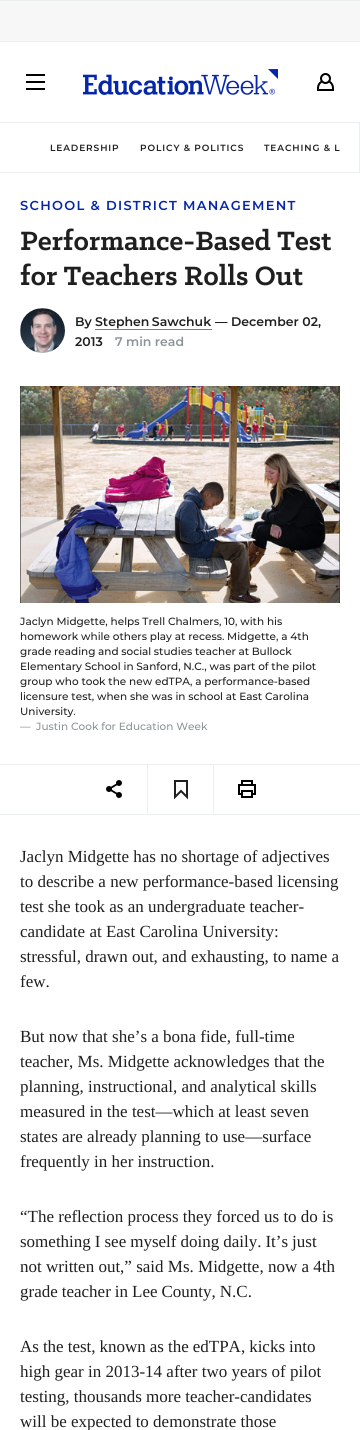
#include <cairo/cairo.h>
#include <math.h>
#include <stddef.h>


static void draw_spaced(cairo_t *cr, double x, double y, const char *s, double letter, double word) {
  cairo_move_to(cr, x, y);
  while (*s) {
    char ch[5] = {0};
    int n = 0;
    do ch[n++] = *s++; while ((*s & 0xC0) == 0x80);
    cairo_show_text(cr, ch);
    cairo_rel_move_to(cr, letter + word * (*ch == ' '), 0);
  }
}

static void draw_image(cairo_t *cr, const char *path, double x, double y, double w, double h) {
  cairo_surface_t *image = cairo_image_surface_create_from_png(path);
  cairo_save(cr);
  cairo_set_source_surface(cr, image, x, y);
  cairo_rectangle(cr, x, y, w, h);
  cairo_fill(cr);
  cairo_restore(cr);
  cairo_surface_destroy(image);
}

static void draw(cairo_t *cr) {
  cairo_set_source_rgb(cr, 1, 1, 1);
  cairo_paint(cr);
  cairo_set_source_rgb(cr, 247 / 255.0, 247 / 255.0, 247 / 255.0);
  cairo_rectangle(cr, 0, 1, 360, 40);
  cairo_fill(cr);
  cairo_set_source_rgb(cr, 235 / 255.0, 239 / 255.0, 240 / 255.0);
  cairo_rectangle(cr, 0, 0, 360, 1);
  cairo_fill(cr);
  cairo_rectangle(cr, 0, 41, 360, 1);
  cairo_fill(cr);
  cairo_rectangle(cr, 0, 122, 360, 1);
  cairo_fill(cr);
  draw_image(cr, "images/1.png", 26, 74, 19, 16);
  draw_image(cr, "images/2.png", 83, 69, 195, 26);
  draw_image(cr, "images/3.png", 317, 73, 17, 18);
  cairo_save(cr);
  cairo_rectangle(cr, 0, 123, 360, 50);
  cairo_clip(cr);
  cairo_set_fill_rule(cr, CAIRO_FILL_RULE_EVEN_ODD);
  cairo_new_path(cr);
  cairo_move_to(cr, -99, 24);
  cairo_line_to(cr, 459, 24);
  cairo_line_to(cr, 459, 272);
  cairo_line_to(cr, -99, 272);
  cairo_close_path(cr);
  cairo_move_to(cr, -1, 122);
  cairo_line_to(cr, 359, 122);
  cairo_line_to(cr, 359, 172);
  cairo_line_to(cr, -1, 172);
  cairo_close_path(cr);
  cairo_fill(cr);
  cairo_restore(cr);
  draw_image(cr, "images/4.png", 21, 228, 310, 23);
  draw_image(cr, "images/5.png", 20, 263, 283, 23);
  draw_image(cr, "images/6.png", 20, 308, 45, 45);
  cairo_set_source_rgb(cr, 0, 172 / 255.0, 216 / 255.0);
  cairo_rectangle(cr, 95, 329, 117, 1);
  cairo_fill(cr);
  draw_image(cr, "images/7.png", 20, 386, 320, 217);
  cairo_set_source_rgb(cr, 235 / 255.0, 239 / 255.0, 240 / 255.0);
  cairo_rectangle(cr, 147, 764, 1, 50);
  cairo_fill(cr);
  cairo_rectangle(cr, 213, 764, 1, 50);
  cairo_fill(cr);
  cairo_rectangle(cr, 0, 764, 360, 1);
  cairo_fill(cr);
  draw_image(cr, "images/8.png", 106, 780, 16, 18);
  cairo_new_path(cr);
  cairo_move_to(cr, 175, 781);
  cairo_line_to(cr, 187, 781);
  cairo_line_to(cr, 187, 797);
  cairo_line_to(cr, 181, 791);
  cairo_line_to(cr, 175, 797);
  cairo_close_path(cr);
  cairo_set_source_rgb(cr, 31 / 255.0, 31 / 255.0, 31 / 255.0);
  cairo_stroke(cr);
  draw_image(cr, "images/9.png", 238, 780, 18, 18);
  cairo_set_source_rgb(cr, 235 / 255.0, 239 / 255.0, 240 / 255.0);
  cairo_rectangle(cr, 0, 814, 360, 1);
  cairo_fill(cr);
  cairo_select_font_face(cr, "Montserrat SemiBold", CAIRO_FONT_SLANT_NORMAL, CAIRO_FONT_WEIGHT_NORMAL);
  cairo_set_font_size(cr, 9);
  cairo_set_source_rgb(cr, 31 / 255.0, 31 / 255.0, 31 / 255.0);
  draw_spaced(cr, 50, 151, "LEADERSHIP", 0.9, 0);
  draw_spaced(cr, 140, 151, "POLICY & POLITICS", 0.9, 0);
  draw_spaced(cr, 264, 151, "TEACHING & L", 0.9, 0);
  cairo_set_font_size(cr, 13);
  cairo_set_source_rgb(cr, 6 / 255.0, 38 / 255.0, 169 / 255.0);
  draw_spaced(cr, 20, 210, "SCHOOL & DISTRICT MANAGEMENT", 1.3, 0);
  cairo_set_font_size(cr, 12.5);
  cairo_set_source_rgb(cr, 31 / 255.0, 31 / 255.0, 31 / 255.0);
  cairo_move_to(cr, 75, 326);
  cairo_show_text(cr, "By");
  draw_spaced(cr, 95, 326, "Stephen Sawchuk", 0, -1);
  cairo_move_to(cr, 215, 326);
  cairo_show_text(cr, "— December 02,");
  cairo_move_to(cr, 75, 346);
  cairo_show_text(cr, "2013");
  cairo_set_source_rgb(cr, 141 / 255.0, 148 / 255.0, 152 / 255.0);
  cairo_move_to(cr, 115, 346);
  cairo_show_text(cr, "7 min read");
  cairo_select_font_face(cr, "Montserrat Medium", CAIRO_FONT_SLANT_NORMAL, CAIRO_FONT_WEIGHT_NORMAL);
  cairo_set_font_size(cr, 10.5);
  cairo_set_source_rgb(cr, 31 / 255.0, 31 / 255.0, 31 / 255.0);
  cairo_move_to(cr, 20, 625);
  cairo_show_text(cr, "Jaclyn Midgette, helps Trell Chalmers, 10, with his");
  cairo_move_to(cr, 20, 640);
  cairo_show_text(cr, "homework while others play at recess. Midgette, a 4th");
  draw_spaced(cr, 20, 655, "grade reading and social studies teacher at Bullock", 0, -0.25);
  cairo_move_to(cr, 20, 670);
  cairo_show_text(cr, "Elementary School in Sanford, N.C., was part of the pilot");
  cairo_move_to(cr, 20, 685);
  cairo_show_text(cr, "group who took the new edTPA, a performance-based");
  cairo_move_to(cr, 20, 700);
  cairo_show_text(cr, "licensure test, when she was in school at East Carolina");
  cairo_move_to(cr, 20, 715);
  cairo_show_text(cr, "University.");
  cairo_set_source_rgb(cr, 141 / 255.0, 148 / 255.0, 152 / 255.0);
  cairo_move_to(cr, 20, 730);
  cairo_show_text(cr, "—");
  cairo_move_to(cr, 36, 730);
  cairo_show_text(cr, "Justin Cook for Education Week");
  cairo_select_font_face(cr, "Liberation Serif", CAIRO_FONT_SLANT_NORMAL, CAIRO_FONT_WEIGHT_NORMAL);
  cairo_set_font_size(cr, 17);
  cairo_set_source_rgb(cr, 31 / 255.0, 31 / 255.0, 31 / 255.0);
  cairo_move_to(cr, 20, 862);
  cairo_show_text(cr, "Jaclyn Midgette has no shortage of adjectives");
  cairo_move_to(cr, 20, 887);
  cairo_show_text(cr, "to describe a new performance-based licensing");
  cairo_move_to(cr, 20, 912);
  cairo_show_text(cr, "test she took as an undergraduate teacher-");
  cairo_move_to(cr, 20, 937);
  cairo_show_text(cr, "candidate at East Carolina University:");
  cairo_move_to(cr, 20, 962);
  cairo_show_text(cr, "stressful, drawn out, and exhausting, to name a");
  cairo_move_to(cr, 20, 987);
  cairo_show_text(cr, "few.");
  cairo_move_to(cr, 20, 1042);
  cairo_show_text(cr, "But now that she’s a bona fide, full-time");
  cairo_move_to(cr, 20, 1067);
  cairo_show_text(cr, "teacher, Ms. Midgette acknowledges that the");
  cairo_move_to(cr, 20, 1092);
  cairo_show_text(cr, "planning, instructional, and analytical skills");
  cairo_move_to(cr, 20, 1117);
  cairo_show_text(cr, "measured in the test—which at least seven");
  cairo_move_to(cr, 20, 1142);
  cairo_show_text(cr, "states are already planning to use—surface");
  cairo_move_to(cr, 20, 1167);
  cairo_show_text(cr, "frequently in her instruction.");
  cairo_move_to(cr, 20, 1222);
  cairo_show_text(cr, "“The reflection process they forced us to do is");
  draw_spaced(cr, 20, 1247, "something I see myself doing daily. It’s just", 0, -0.25);
  cairo_move_to(cr, 20, 1272);
  cairo_show_text(cr, "not written out,” said Ms. Midgette, now a 4th");
  draw_spaced(cr, 20, 1297, "grade teacher in Lee County, N.C.", 0, -0.25);
  draw_spaced(cr, 20, 1352, "As the test, known as the edTPA, kicks into", 0, -0.25);
  cairo_move_to(cr, 20, 1377);
  cairo_show_text(cr, "high gear in 2013-14 after two years of pilot");
  cairo_move_to(cr, 20, 1402);
  cairo_show_text(cr, "testing, thousands more teacher-candidates");
  cairo_move_to(cr, 20, 1427);
  cairo_show_text(cr, "will be expected to demonstrate those");
}

int main(void) {
  cairo_surface_t *surface = cairo_image_surface_create(CAIRO_FORMAT_RGB24, 360, 1430);
  cairo_t *cr = cairo_create(surface);
  cairo_font_options_t *options = cairo_font_options_create();
  cairo_font_options_set_hint_metrics(options, CAIRO_HINT_METRICS_OFF);
  cairo_font_options_set_hint_style(options, CAIRO_HINT_STYLE_NONE);
  cairo_set_font_options(cr, options);
  cairo_set_miter_limit(cr, 4);
  draw(cr);
  cairo_surface_write_to_png(surface, "out.png");
  cairo_font_options_destroy(options);
  cairo_destroy(cr);
  cairo_surface_destroy(surface);
  return 0;
}
